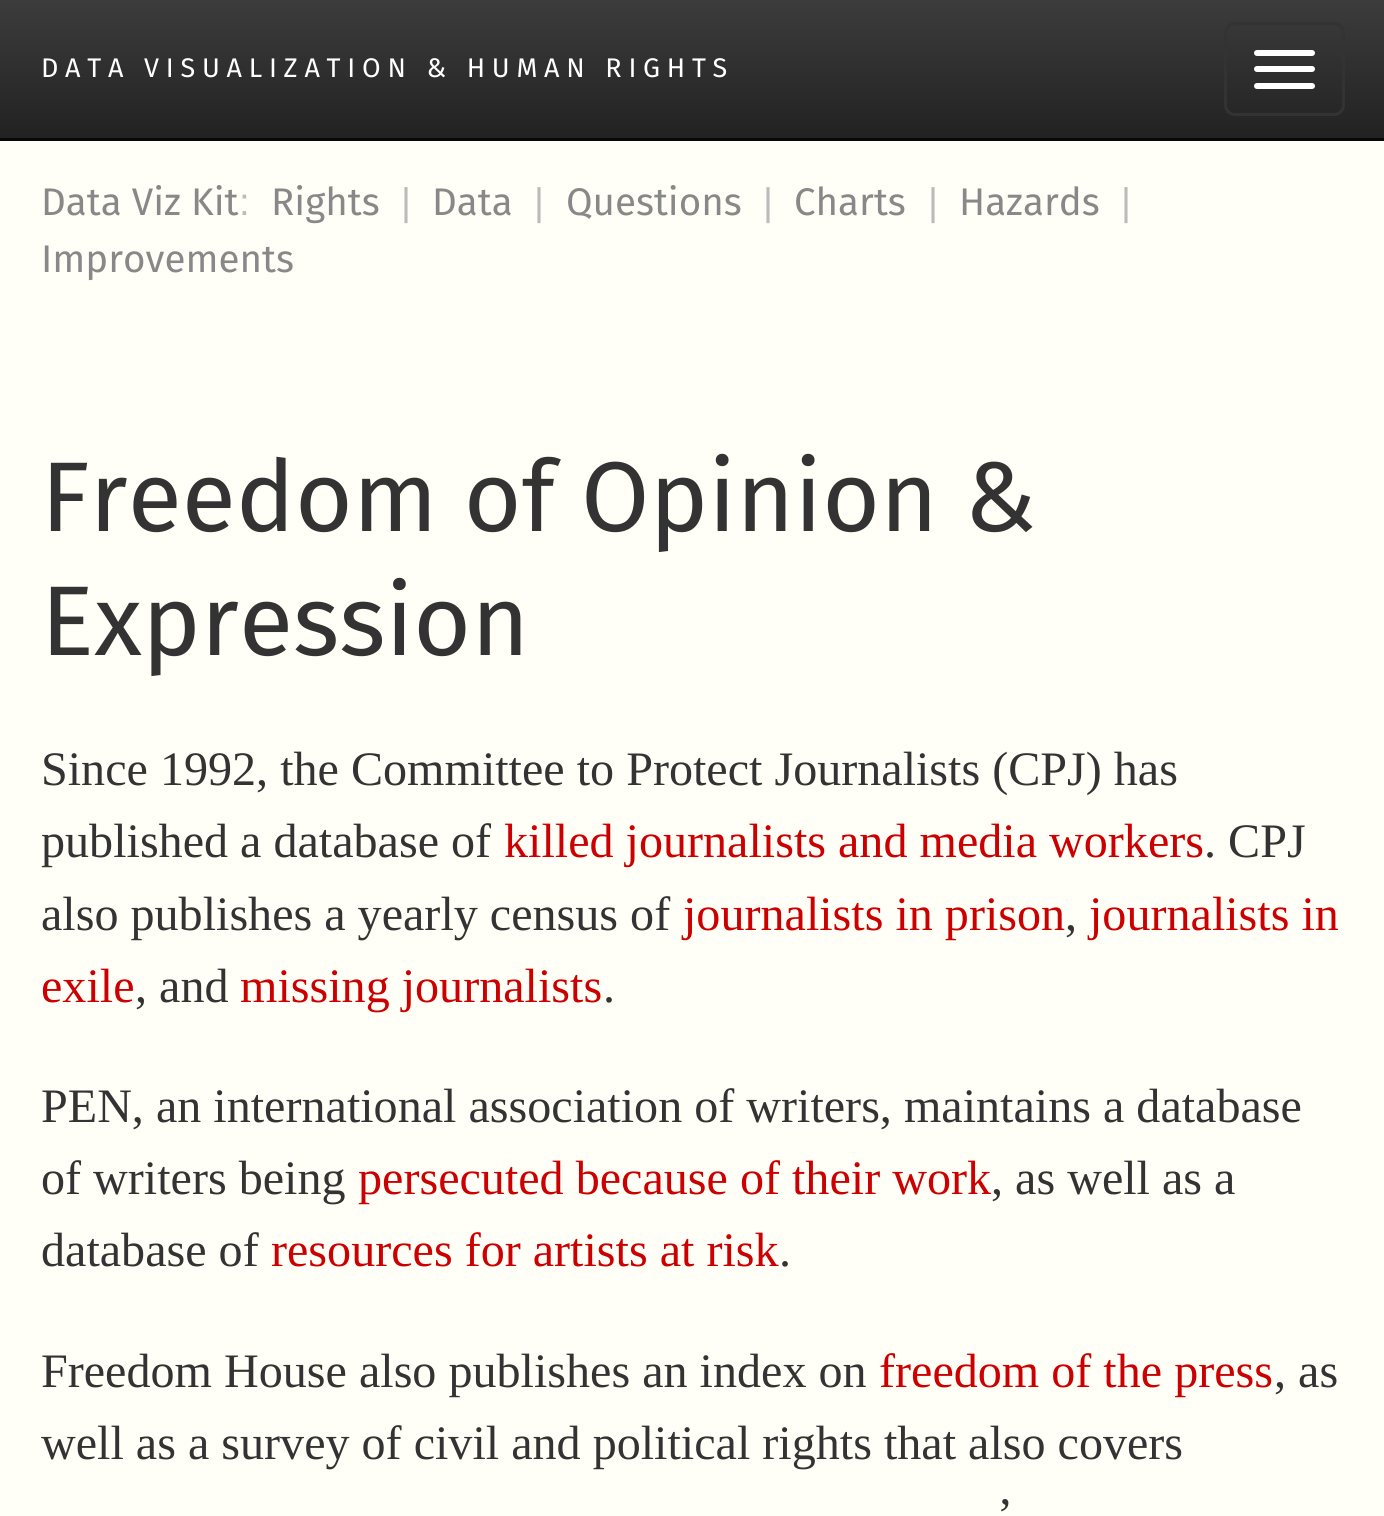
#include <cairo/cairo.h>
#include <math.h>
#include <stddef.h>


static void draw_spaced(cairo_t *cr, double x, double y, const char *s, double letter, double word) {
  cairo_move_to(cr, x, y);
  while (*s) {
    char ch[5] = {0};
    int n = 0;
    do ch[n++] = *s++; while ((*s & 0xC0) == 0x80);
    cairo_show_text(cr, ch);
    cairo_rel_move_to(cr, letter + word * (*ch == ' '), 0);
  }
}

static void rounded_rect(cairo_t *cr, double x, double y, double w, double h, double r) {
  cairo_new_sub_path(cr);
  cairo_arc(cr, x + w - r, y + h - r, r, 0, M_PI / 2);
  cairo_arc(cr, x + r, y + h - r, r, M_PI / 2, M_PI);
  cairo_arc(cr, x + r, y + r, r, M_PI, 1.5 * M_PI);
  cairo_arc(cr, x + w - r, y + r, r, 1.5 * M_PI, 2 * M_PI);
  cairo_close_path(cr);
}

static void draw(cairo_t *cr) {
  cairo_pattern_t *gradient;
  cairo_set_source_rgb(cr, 1, 1, 248 / 255.0);
  cairo_paint(cr);
  gradient = cairo_pattern_create_linear(693, 0, 693, 138);
  cairo_pattern_add_color_stop_rgba(gradient, 0, 60 / 255.0, 60 / 255.0, 60 / 255.0, 1);
  cairo_pattern_add_color_stop_rgba(gradient, 1, 34 / 255.0, 34 / 255.0, 34 / 255.0, 1);
  cairo_set_source(cr, gradient);
  cairo_pattern_destroy(gradient);
  cairo_rectangle(cr, 0, 0, 1384, 138);
  cairo_fill(cr);
  cairo_set_source_rgb(cr, 8 / 255.0, 8 / 255.0, 8 / 255.0);
  cairo_rectangle(cr, 0, 138, 1384, 3);
  cairo_fill(cr);
  rounded_rect(cr, 1225.5, 23.5, 118, 91, 9.5);
  cairo_set_source_rgb(cr, 51 / 255.0, 51 / 255.0, 51 / 255.0);
  cairo_set_line_width(cr, 3);
  cairo_stroke(cr);
  cairo_set_source_rgb(cr, 1, 1, 1);
  rounded_rect(cr, 1254, 50, 61, 6, 3);
  cairo_fill(cr);
  rounded_rect(cr, 1254, 66, 61, 6, 3);
  cairo_fill(cr);
  rounded_rect(cr, 1254, 83, 61, 6, 3);
  cairo_fill(cr);
  cairo_select_font_face(cr, "Fira Sans", CAIRO_FONT_SLANT_NORMAL, CAIRO_FONT_WEIGHT_NORMAL);
  cairo_set_font_size(cr, 26.95);
  draw_spaced(cr, 41, 77, "DATA VISUALIZATION & HUMAN RIGHTS", 6.75, 0);
  cairo_set_font_size(cr, 38.5);
  cairo_set_source_rgb(cr, 136 / 255.0, 136 / 255.0, 136 / 255.0);
  cairo_move_to(cr, 41, 215);
  cairo_show_text(cr, "Data Viz Kit");
  cairo_select_font_face(cr, "Liberation Sans", CAIRO_FONT_SLANT_NORMAL, CAIRO_FONT_WEIGHT_NORMAL);
  cairo_set_source_rgb(cr, 187 / 255.0, 187 / 255.0, 187 / 255.0);
  cairo_move_to(cr, 239, 215);
  cairo_show_text(cr, ":");
  cairo_select_font_face(cr, "Fira Sans", CAIRO_FONT_SLANT_NORMAL, CAIRO_FONT_WEIGHT_NORMAL);
  cairo_set_source_rgb(cr, 136 / 255.0, 136 / 255.0, 136 / 255.0);
  cairo_move_to(cr, 271, 215);
  cairo_show_text(cr, "Rights");
  cairo_select_font_face(cr, "Liberation Sans", CAIRO_FONT_SLANT_NORMAL, CAIRO_FONT_WEIGHT_NORMAL);
  cairo_set_source_rgb(cr, 187 / 255.0, 187 / 255.0, 187 / 255.0);
  cairo_move_to(cr, 401, 215);
  cairo_show_text(cr, "|");
  cairo_select_font_face(cr, "Fira Sans", CAIRO_FONT_SLANT_NORMAL, CAIRO_FONT_WEIGHT_NORMAL);
  cairo_set_source_rgb(cr, 136 / 255.0, 136 / 255.0, 136 / 255.0);
  cairo_move_to(cr, 432, 215);
  cairo_show_text(cr, "Data");
  cairo_select_font_face(cr, "Liberation Sans", CAIRO_FONT_SLANT_NORMAL, CAIRO_FONT_WEIGHT_NORMAL);
  cairo_set_source_rgb(cr, 187 / 255.0, 187 / 255.0, 187 / 255.0);
  cairo_move_to(cr, 534, 215);
  cairo_show_text(cr, "|");
  cairo_select_font_face(cr, "Fira Sans", CAIRO_FONT_SLANT_NORMAL, CAIRO_FONT_WEIGHT_NORMAL);
  cairo_set_source_rgb(cr, 136 / 255.0, 136 / 255.0, 136 / 255.0);
  cairo_move_to(cr, 566, 215);
  cairo_show_text(cr, "Questions");
  cairo_select_font_face(cr, "Liberation Sans", CAIRO_FONT_SLANT_NORMAL, CAIRO_FONT_WEIGHT_NORMAL);
  cairo_set_source_rgb(cr, 187 / 255.0, 187 / 255.0, 187 / 255.0);
  cairo_move_to(cr, 763, 215);
  cairo_show_text(cr, "|");
  cairo_select_font_face(cr, "Fira Sans", CAIRO_FONT_SLANT_NORMAL, CAIRO_FONT_WEIGHT_NORMAL);
  cairo_set_source_rgb(cr, 136 / 255.0, 136 / 255.0, 136 / 255.0);
  cairo_move_to(cr, 794, 215);
  cairo_show_text(cr, "Charts");
  cairo_select_font_face(cr, "Liberation Sans", CAIRO_FONT_SLANT_NORMAL, CAIRO_FONT_WEIGHT_NORMAL);
  cairo_set_source_rgb(cr, 187 / 255.0, 187 / 255.0, 187 / 255.0);
  cairo_move_to(cr, 928, 215);
  cairo_show_text(cr, "|");
  cairo_select_font_face(cr, "Fira Sans", CAIRO_FONT_SLANT_NORMAL, CAIRO_FONT_WEIGHT_NORMAL);
  cairo_set_source_rgb(cr, 136 / 255.0, 136 / 255.0, 136 / 255.0);
  cairo_move_to(cr, 959, 215);
  cairo_show_text(cr, "Hazards");
  cairo_select_font_face(cr, "Liberation Sans", CAIRO_FONT_SLANT_NORMAL, CAIRO_FONT_WEIGHT_NORMAL);
  cairo_set_source_rgb(cr, 187 / 255.0, 187 / 255.0, 187 / 255.0);
  cairo_move_to(cr, 1121, 215);
  cairo_show_text(cr, "|");
  cairo_select_font_face(cr, "Fira Sans", CAIRO_FONT_SLANT_NORMAL, CAIRO_FONT_WEIGHT_NORMAL);
  cairo_set_source_rgb(cr, 136 / 255.0, 136 / 255.0, 136 / 255.0);
  cairo_move_to(cr, 41, 272);
  cairo_show_text(cr, "Improvements");
  cairo_set_font_size(cr, 99);
  cairo_set_source_rgb(cr, 51 / 255.0, 51 / 255.0, 51 / 255.0);
  cairo_move_to(cr, 41, 531);
  cairo_show_text(cr, "Freedom of Opinion &");
  cairo_move_to(cr, 41, 655);
  cairo_show_text(cr, "Expression");
  cairo_select_font_face(cr, "Liberation Serif", CAIRO_FONT_SLANT_NORMAL, CAIRO_FONT_WEIGHT_NORMAL);
  cairo_set_font_size(cr, 48.1);
  cairo_move_to(cr, 41, 785);
  cairo_show_text(cr, "Since 1992, the Committee to Protect Journalists (CPJ) has");
  cairo_move_to(cr, 41, 857);
  cairo_show_text(cr, "published a database of");
  cairo_set_source_rgb(cr, 204 / 255.0, 0, 0);
  cairo_move_to(cr, 504, 857);
  cairo_show_text(cr, "killed journalists and media workers");
  cairo_set_source_rgb(cr, 51 / 255.0, 51 / 255.0, 51 / 255.0);
  cairo_move_to(cr, 1204, 857);
  cairo_show_text(cr, ". CPJ");
  cairo_move_to(cr, 41, 930);
  cairo_show_text(cr, "also publishes a yearly census of");
  cairo_set_source_rgb(cr, 204 / 255.0, 0, 0);
  cairo_move_to(cr, 683, 930);
  cairo_show_text(cr, "journalists in prison");
  cairo_set_source_rgb(cr, 51 / 255.0, 51 / 255.0, 51 / 255.0);
  cairo_move_to(cr, 1065, 930);
  cairo_show_text(cr, ",");
  cairo_set_source_rgb(cr, 204 / 255.0, 0, 0);
  cairo_move_to(cr, 1089, 930);
  cairo_show_text(cr, "journalists in");
  cairo_move_to(cr, 41, 1002);
  cairo_show_text(cr, "exile");
  cairo_set_source_rgb(cr, 51 / 255.0, 51 / 255.0, 51 / 255.0);
  cairo_move_to(cr, 135, 1002);
  cairo_show_text(cr, ", and");
  cairo_set_source_rgb(cr, 204 / 255.0, 0, 0);
  cairo_move_to(cr, 240, 1002);
  cairo_show_text(cr, "missing journalists");
  cairo_set_source_rgb(cr, 51 / 255.0, 51 / 255.0, 51 / 255.0);
  cairo_move_to(cr, 603, 1002);
  cairo_show_text(cr, ".");
  cairo_move_to(cr, 41, 1122);
  cairo_show_text(cr, "PEN, an international association of writers, maintains a database");
  cairo_move_to(cr, 41, 1194);
  cairo_show_text(cr, "of writers being");
  cairo_set_source_rgb(cr, 204 / 255.0, 0, 0);
  cairo_move_to(cr, 358, 1194);
  cairo_show_text(cr, "persecuted because of their work");
  cairo_set_source_rgb(cr, 51 / 255.0, 51 / 255.0, 51 / 255.0);
  cairo_move_to(cr, 991, 1194);
  cairo_show_text(cr, ", as well as a");
  cairo_move_to(cr, 41, 1266);
  cairo_show_text(cr, "database of");
  cairo_set_source_rgb(cr, 204 / 255.0, 0, 0);
  cairo_move_to(cr, 271, 1266);
  cairo_show_text(cr, "resources for artists at risk");
  cairo_set_source_rgb(cr, 51 / 255.0, 51 / 255.0, 51 / 255.0);
  cairo_move_to(cr, 779, 1266);
  cairo_show_text(cr, ".");
  cairo_move_to(cr, 41, 1387);
  cairo_show_text(cr, "Freedom House also publishes an index on");
  cairo_set_source_rgb(cr, 204 / 255.0, 0, 0);
  cairo_move_to(cr, 879, 1387);
  cairo_show_text(cr, "freedom of the press");
  cairo_set_source_rgb(cr, 51 / 255.0, 51 / 255.0, 51 / 255.0);
  cairo_move_to(cr, 1274, 1387);
  cairo_show_text(cr, ", as");
  cairo_move_to(cr, 41, 1459);
  cairo_show_text(cr, "well as a survey of civil and political rights that also covers");
  cairo_move_to(cr, 997, 1531);
  cairo_show_text(cr, "’");
}

int main(void) {
  cairo_surface_t *surface = cairo_image_surface_create(CAIRO_FORMAT_RGB24, 1384, 1516);
  cairo_t *cr = cairo_create(surface);
  cairo_font_options_t *options = cairo_font_options_create();
  cairo_font_options_set_hint_metrics(options, CAIRO_HINT_METRICS_OFF);
  cairo_font_options_set_hint_style(options, CAIRO_HINT_STYLE_NONE);
  cairo_set_font_options(cr, options);
  cairo_set_miter_limit(cr, 4);
  draw(cr);
  cairo_surface_write_to_png(surface, "out.png");
  cairo_font_options_destroy(options);
  cairo_destroy(cr);
  cairo_surface_destroy(surface);
  return 0;
}
